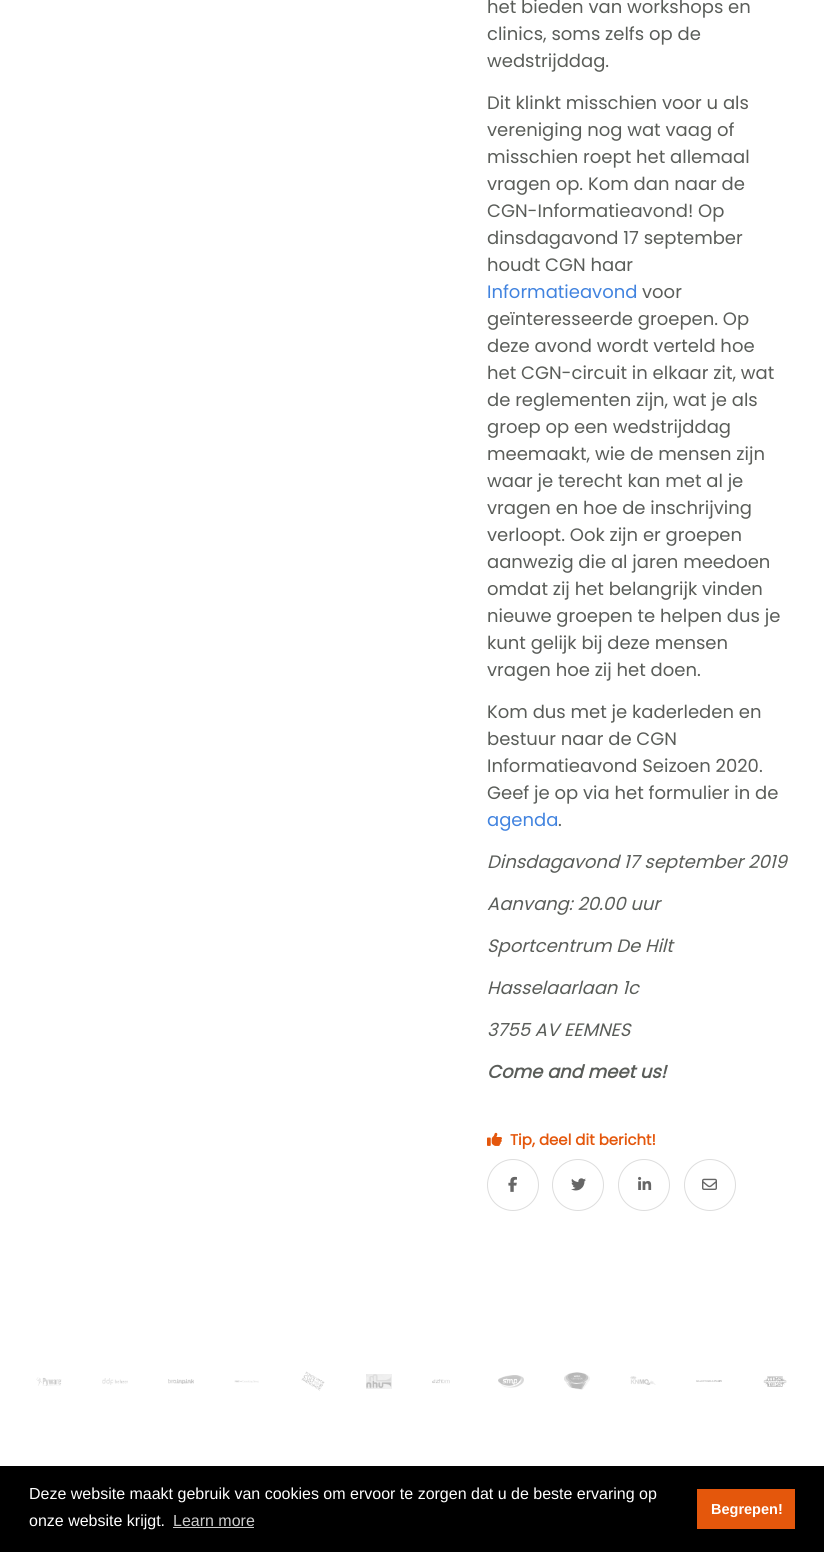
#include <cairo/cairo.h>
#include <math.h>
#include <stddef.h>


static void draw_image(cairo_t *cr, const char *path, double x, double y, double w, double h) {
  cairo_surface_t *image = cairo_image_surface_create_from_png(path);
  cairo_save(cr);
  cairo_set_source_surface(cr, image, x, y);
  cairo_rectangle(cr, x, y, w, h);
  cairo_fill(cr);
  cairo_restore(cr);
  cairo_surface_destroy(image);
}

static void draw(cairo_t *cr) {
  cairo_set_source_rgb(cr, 1, 1, 1);
  cairo_paint(cr);
  draw_image(cr, "images/1.png", 487, 1132, 15, 14);
  cairo_arc(cr, 513, 1185, 25.5, 0, 2 * M_PI);
  cairo_set_source_rgb(cr, 221 / 255.0, 221 / 255.0, 221 / 255.0);
  cairo_set_line_width(cr, 1);
  cairo_stroke(cr);
  draw_image(cr, "images/2.png", 508, 1176, 9, 16);
  cairo_arc(cr, 578, 1185, 25.5, 0, 2 * M_PI);
  cairo_stroke(cr);
  draw_image(cr, "images/3.png", 571, 1178, 15, 13);
  cairo_arc(cr, 644, 1185, 25.5, 0, 2 * M_PI);
  cairo_stroke(cr);
  draw_image(cr, "images/4.png", 638, 1176, 14, 14);
  cairo_arc(cr, 710, 1185, 25.5, 0, 2 * M_PI);
  cairo_stroke(cr);
  draw_image(cr, "images/5.png", 702, 1178, 15, 12);
  draw_image(cr, "images/6.png", 36, 1377, 26, 9);
  draw_image(cr, "images/7.png", 102, 1378, 26, 7);
  draw_image(cr, "images/8.png", 168, 1379, 26, 5);
  draw_image(cr, "images/9.png", 234, 1380, 25, 3);
  draw_image(cr, "images/10.png", 301, 1371, 24, 20);
  draw_image(cr, "images/11.png", 366, 1374, 26, 15);
  draw_image(cr, "images/12.png", 432, 1379, 18, 5);
  draw_image(cr, "images/13.png", 498, 1375, 26, 13);
  draw_image(cr, "images/14.png", 564, 1372, 26, 18);
  draw_image(cr, "images/15.png", 630, 1376, 26, 9);
  draw_image(cr, "images/16.png", 696, 1380, 26, 2);
  draw_image(cr, "images/17.png", 763, 1376, 24, 11);
  cairo_set_source_rgb(cr, 0, 0, 0);
  cairo_rectangle(cr, 0, 1466, 824, 86);
  cairo_fill(cr);
  cairo_set_source_rgb(cr, 204 / 255.0, 204 / 255.0, 204 / 255.0);
  cairo_rectangle(cr, 173, 1527, 81, 1);
  cairo_fill(cr);
  cairo_set_source_rgb(cr, 228 / 255.0, 87 / 255.0, 12 / 255.0);
  cairo_rectangle(cr, 697, 1489, 98, 40);
  cairo_fill(cr);
  cairo_select_font_face(cr, "Poppins", CAIRO_FONT_SLANT_NORMAL, CAIRO_FONT_WEIGHT_NORMAL);
  cairo_set_font_size(cr, 18);
  cairo_set_source_rgb(cr, 90 / 255.0, 93 / 255.0, 89 / 255.0);
  cairo_move_to(cr, 487, 13);
  cairo_show_text(cr, "het bieden van workshops en");
  cairo_move_to(cr, 487, 40);
  cairo_show_text(cr, "clinics, soms zelfs op de");
  cairo_move_to(cr, 487, 67);
  cairo_show_text(cr, "wedstrijddag.");
  cairo_move_to(cr, 487, 109);
  cairo_show_text(cr, "Dit klinkt misschien voor u als");
  cairo_move_to(cr, 487, 136);
  cairo_show_text(cr, "vereniging nog wat vaag of");
  cairo_move_to(cr, 487, 163);
  cairo_show_text(cr, "misschien roept het allemaal");
  cairo_move_to(cr, 487, 190);
  cairo_show_text(cr, "vragen op. Kom dan naar de");
  cairo_move_to(cr, 487, 217);
  cairo_show_text(cr, "CGN-Informatieavond! Op");
  cairo_move_to(cr, 487, 244);
  cairo_show_text(cr, "dinsdagavond 17 september");
  cairo_move_to(cr, 487, 271);
  cairo_show_text(cr, "houdt CGN haar");
  cairo_set_source_rgb(cr, 65 / 255.0, 131 / 255.0, 223 / 255.0);
  cairo_move_to(cr, 487, 298);
  cairo_show_text(cr, "Informatieavond");
  cairo_set_source_rgb(cr, 90 / 255.0, 93 / 255.0, 89 / 255.0);
  cairo_move_to(cr, 642, 298);
  cairo_show_text(cr, "voor");
  cairo_move_to(cr, 487, 325);
  cairo_show_text(cr, "geïnteresseerde groepen. Op");
  cairo_move_to(cr, 487, 352);
  cairo_show_text(cr, "deze avond wordt verteld hoe");
  cairo_move_to(cr, 487, 379);
  cairo_show_text(cr, "het CGN-circuit in elkaar zit, wat");
  cairo_move_to(cr, 487, 406);
  cairo_show_text(cr, "de reglementen zijn, wat je als");
  cairo_move_to(cr, 487, 433);
  cairo_show_text(cr, "groep op een wedstrijddag");
  cairo_move_to(cr, 487, 460);
  cairo_show_text(cr, "meemaakt, wie de mensen zijn");
  cairo_move_to(cr, 487, 487);
  cairo_show_text(cr, "waar je terecht kan met al je");
  cairo_move_to(cr, 487, 514);
  cairo_show_text(cr, "vragen en hoe de inschrijving");
  cairo_move_to(cr, 487, 541);
  cairo_show_text(cr, "verloopt. Ook zijn er groepen");
  cairo_move_to(cr, 487, 568);
  cairo_show_text(cr, "aanwezig die al jaren meedoen");
  cairo_move_to(cr, 487, 595);
  cairo_show_text(cr, "omdat zij het belangrijk vinden");
  cairo_move_to(cr, 487, 622);
  cairo_show_text(cr, "nieuwe groepen te helpen dus je");
  cairo_move_to(cr, 487, 649);
  cairo_show_text(cr, "kunt gelijk bij deze mensen");
  cairo_move_to(cr, 487, 676);
  cairo_show_text(cr, "vragen hoe zij het doen.");
  cairo_move_to(cr, 487, 718);
  cairo_show_text(cr, "Kom dus met je kaderleden en");
  cairo_move_to(cr, 487, 745);
  cairo_show_text(cr, "bestuur naar de CGN");
  cairo_move_to(cr, 487, 772);
  cairo_show_text(cr, "Informatieavond Seizoen 2020.");
  cairo_move_to(cr, 487, 799);
  cairo_show_text(cr, "Geef je op via het formulier in de");
  cairo_set_source_rgb(cr, 65 / 255.0, 131 / 255.0, 223 / 255.0);
  cairo_move_to(cr, 487, 826);
  cairo_show_text(cr, "agenda");
  cairo_set_source_rgb(cr, 90 / 255.0, 93 / 255.0, 89 / 255.0);
  cairo_move_to(cr, 558, 826);
  cairo_show_text(cr, ".");
  cairo_select_font_face(cr, "Poppins", CAIRO_FONT_SLANT_ITALIC, CAIRO_FONT_WEIGHT_NORMAL);
  cairo_move_to(cr, 487, 868);
  cairo_show_text(cr, "Dinsdagavond 17 september 2019");
  cairo_move_to(cr, 487, 910);
  cairo_show_text(cr, "Aanvang: 20.00 uur");
  cairo_move_to(cr, 487, 952);
  cairo_show_text(cr, "Sportcentrum De Hilt");
  cairo_move_to(cr, 487, 994);
  cairo_show_text(cr, "Hasselaarlaan 1c");
  cairo_move_to(cr, 487, 1036);
  cairo_show_text(cr, "3755 AV EEMNES");
  cairo_select_font_face(cr, "Poppins", CAIRO_FONT_SLANT_ITALIC, CAIRO_FONT_WEIGHT_BOLD);
  cairo_move_to(cr, 487, 1078);
  cairo_show_text(cr, "Come and meet us!");
  cairo_select_font_face(cr, "Poppins", CAIRO_FONT_SLANT_NORMAL, CAIRO_FONT_WEIGHT_BOLD);
  cairo_set_font_size(cr, 15);
  cairo_set_source_rgb(cr, 228 / 255.0, 87 / 255.0, 12 / 255.0);
  cairo_move_to(cr, 510, 1145);
  cairo_show_text(cr, "Tip, deel dit bericht!");
  cairo_select_font_face(cr, "Liberation Sans", CAIRO_FONT_SLANT_NORMAL, CAIRO_FONT_WEIGHT_NORMAL);
  cairo_set_font_size(cr, 16);
  cairo_set_source_rgb(cr, 1, 1, 1);
  cairo_move_to(cr, 29, 1499);
  cairo_show_text(cr, "Deze website maakt gebruik van cookies om ervoor te zorgen dat u de beste ervaring op");
  cairo_move_to(cr, 29, 1526);
  cairo_show_text(cr, "onze website krijgt.");
  cairo_set_source_rgb(cr, 204 / 255.0, 204 / 255.0, 204 / 255.0);
  cairo_move_to(cr, 173, 1526);
  cairo_show_text(cr, "Learn more");
  cairo_select_font_face(cr, "Liberation Sans", CAIRO_FONT_SLANT_NORMAL, CAIRO_FONT_WEIGHT_BOLD);
  cairo_set_font_size(cr, 14.5);
  cairo_set_source_rgb(cr, 1, 1, 1);
  cairo_move_to(cr, 711, 1514);
  cairo_show_text(cr, "Begrepen!");
}

int main(void) {
  cairo_surface_t *surface = cairo_image_surface_create(CAIRO_FORMAT_RGB24, 824, 1552);
  cairo_t *cr = cairo_create(surface);
  cairo_font_options_t *options = cairo_font_options_create();
  cairo_font_options_set_hint_metrics(options, CAIRO_HINT_METRICS_OFF);
  cairo_font_options_set_hint_style(options, CAIRO_HINT_STYLE_NONE);
  cairo_set_font_options(cr, options);
  cairo_set_miter_limit(cr, 4);
  draw(cr);
  cairo_surface_write_to_png(surface, "out.png");
  cairo_font_options_destroy(options);
  cairo_destroy(cr);
  cairo_surface_destroy(surface);
  return 0;
}
